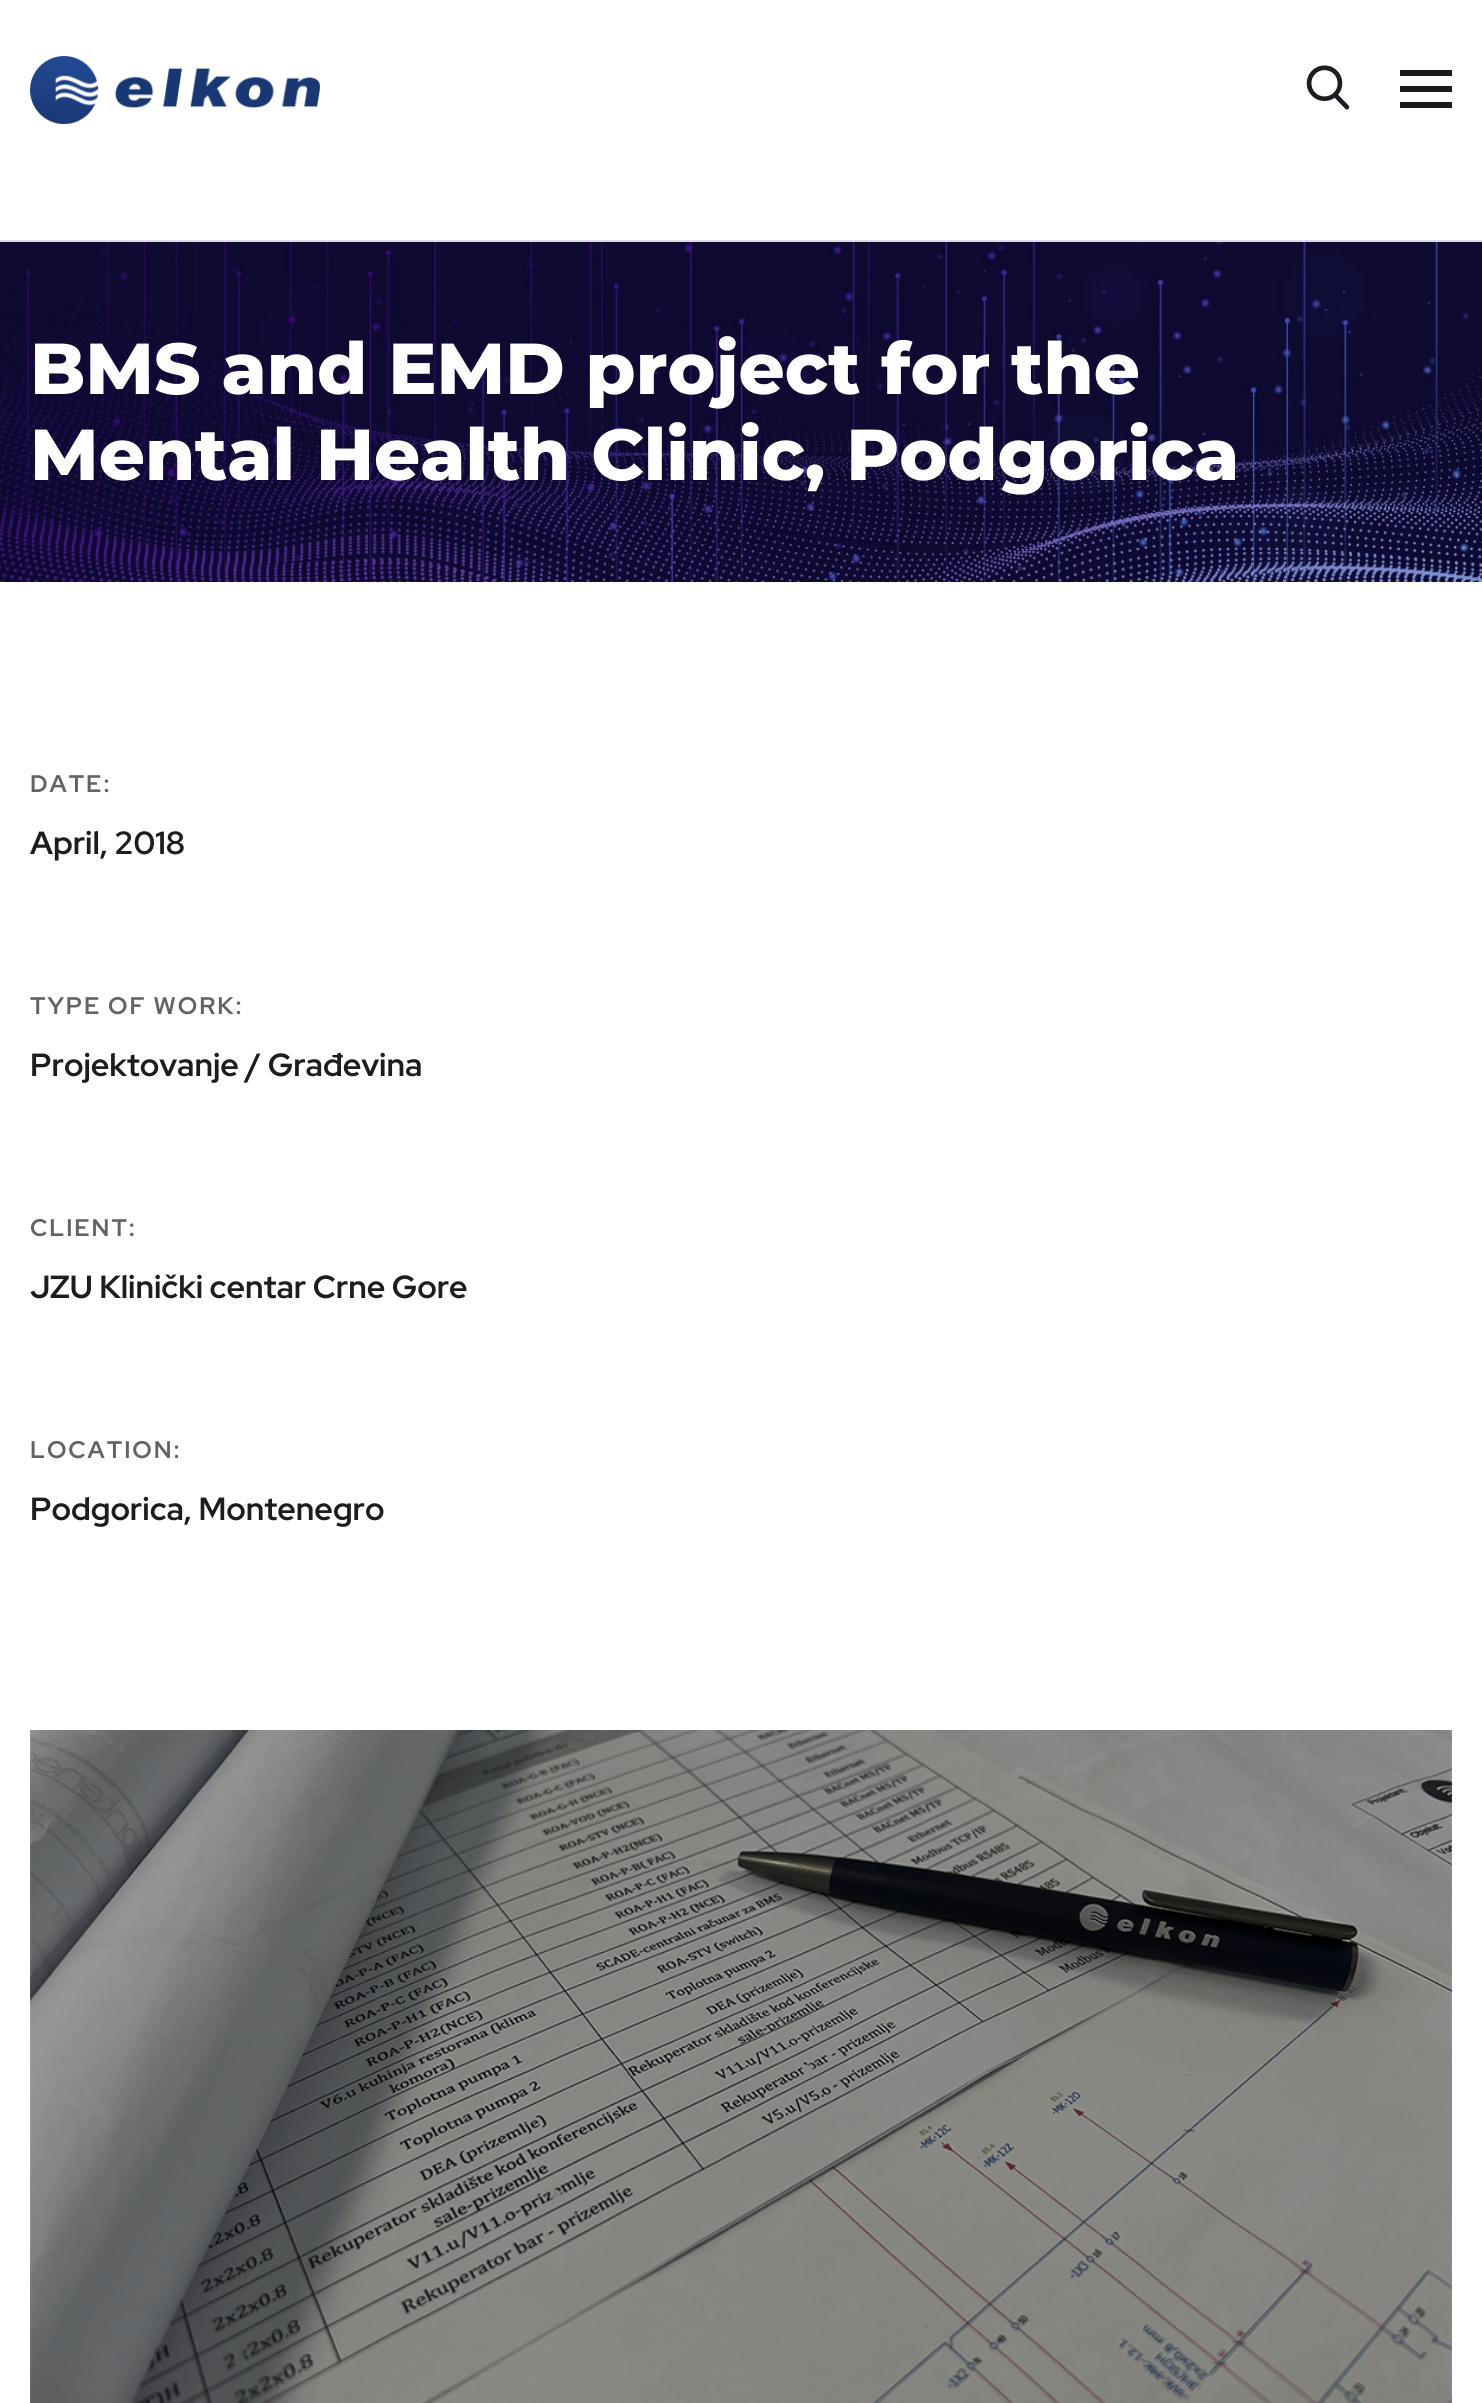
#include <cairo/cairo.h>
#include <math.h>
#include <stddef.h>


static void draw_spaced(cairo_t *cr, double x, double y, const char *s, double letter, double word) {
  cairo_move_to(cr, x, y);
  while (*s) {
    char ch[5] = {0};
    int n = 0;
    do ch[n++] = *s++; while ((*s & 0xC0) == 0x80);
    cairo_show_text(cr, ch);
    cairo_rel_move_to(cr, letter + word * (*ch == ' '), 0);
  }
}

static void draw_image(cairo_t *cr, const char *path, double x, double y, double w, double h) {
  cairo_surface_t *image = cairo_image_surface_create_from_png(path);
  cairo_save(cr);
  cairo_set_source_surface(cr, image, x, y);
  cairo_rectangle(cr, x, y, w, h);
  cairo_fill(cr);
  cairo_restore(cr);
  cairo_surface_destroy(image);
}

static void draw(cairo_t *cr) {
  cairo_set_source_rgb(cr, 1, 1, 1);
  cairo_paint(cr);
  cairo_set_source_rgb(cr, 220 / 255.0, 221 / 255.0, 225 / 255.0);
  cairo_rectangle(cr, 0, 240, 1482, 2);
  cairo_fill(cr);
  draw_image(cr, "images/1.png", 30, 56, 290, 68);
  draw_image(cr, "images/2.png", 1306, 65, 44, 45);
  cairo_set_source_rgb(cr, 27 / 255.0, 29 / 255.0, 33 / 255.0);
  cairo_rectangle(cr, 1400, 86, 52, 6);
  cairo_fill(cr);
  cairo_rectangle(cr, 1400, 70, 52, 6);
  cairo_fill(cr);
  cairo_rectangle(cr, 1400, 102, 52, 6);
  cairo_fill(cr);
  draw_image(cr, "images/3.png", 0, 242, 1482, 340);
  draw_image(cr, "images/4.png", 30, 1730, 1422, 673);
  cairo_select_font_face(cr, "Montserrat ExtraBold", CAIRO_FONT_SLANT_NORMAL, CAIRO_FONT_WEIGHT_NORMAL);
  cairo_set_font_size(cr, 72);
  cairo_set_source_rgb(cr, 1, 1, 1);
  cairo_move_to(cr, 30, 394);
  cairo_show_text(cr, "BMS and EMD project for the");
  cairo_move_to(cr, 30, 480);
  cairo_show_text(cr, "Mental Health Clinic, Podgorica");
  cairo_select_font_face(cr, "Red Hat Display", CAIRO_FONT_SLANT_NORMAL, CAIRO_FONT_WEIGHT_BOLD);
  cairo_set_font_size(cr, 24);
  cairo_set_source_rgb(cr, 99 / 255.0, 99 / 255.0, 99 / 255.0);
  draw_spaced(cr, 30, 792, "DATE:", 2, 0);
  cairo_set_font_size(cr, 32);
  cairo_set_source_rgb(cr, 27 / 255.0, 29 / 255.0, 33 / 255.0);
  cairo_move_to(cr, 30, 854);
  cairo_show_text(cr, "April, 2018");
  cairo_set_font_size(cr, 24);
  cairo_set_source_rgb(cr, 99 / 255.0, 99 / 255.0, 99 / 255.0);
  draw_spaced(cr, 30, 1014, "TYPE OF WORK:", 2, 0);
  cairo_set_font_size(cr, 32);
  cairo_set_source_rgb(cr, 27 / 255.0, 29 / 255.0, 33 / 255.0);
  cairo_move_to(cr, 30, 1076);
  cairo_show_text(cr, "Projektovanje / Građevina");
  cairo_set_font_size(cr, 24);
  cairo_set_source_rgb(cr, 99 / 255.0, 99 / 255.0, 99 / 255.0);
  draw_spaced(cr, 30, 1236, "CLIENT:", 2, 0);
  cairo_set_font_size(cr, 32);
  cairo_set_source_rgb(cr, 27 / 255.0, 29 / 255.0, 33 / 255.0);
  cairo_move_to(cr, 30, 1298);
  cairo_show_text(cr, "JZU Klinički centar Crne Gore");
  cairo_set_font_size(cr, 24);
  cairo_set_source_rgb(cr, 99 / 255.0, 99 / 255.0, 99 / 255.0);
  draw_spaced(cr, 30, 1458, "LOCATION:", 2, 0);
  cairo_set_font_size(cr, 32);
  cairo_set_source_rgb(cr, 27 / 255.0, 29 / 255.0, 33 / 255.0);
  cairo_move_to(cr, 30, 1520);
  cairo_show_text(cr, "Podgorica, Montenegro");
}

int main(void) {
  cairo_surface_t *surface = cairo_image_surface_create(CAIRO_FORMAT_RGB24, 1482, 2403);
  cairo_t *cr = cairo_create(surface);
  cairo_font_options_t *options = cairo_font_options_create();
  cairo_font_options_set_hint_metrics(options, CAIRO_HINT_METRICS_OFF);
  cairo_font_options_set_hint_style(options, CAIRO_HINT_STYLE_NONE);
  cairo_set_font_options(cr, options);
  cairo_set_miter_limit(cr, 4);
  draw(cr);
  cairo_surface_write_to_png(surface, "out.png");
  cairo_font_options_destroy(options);
  cairo_destroy(cr);
  cairo_surface_destroy(surface);
  return 0;
}
